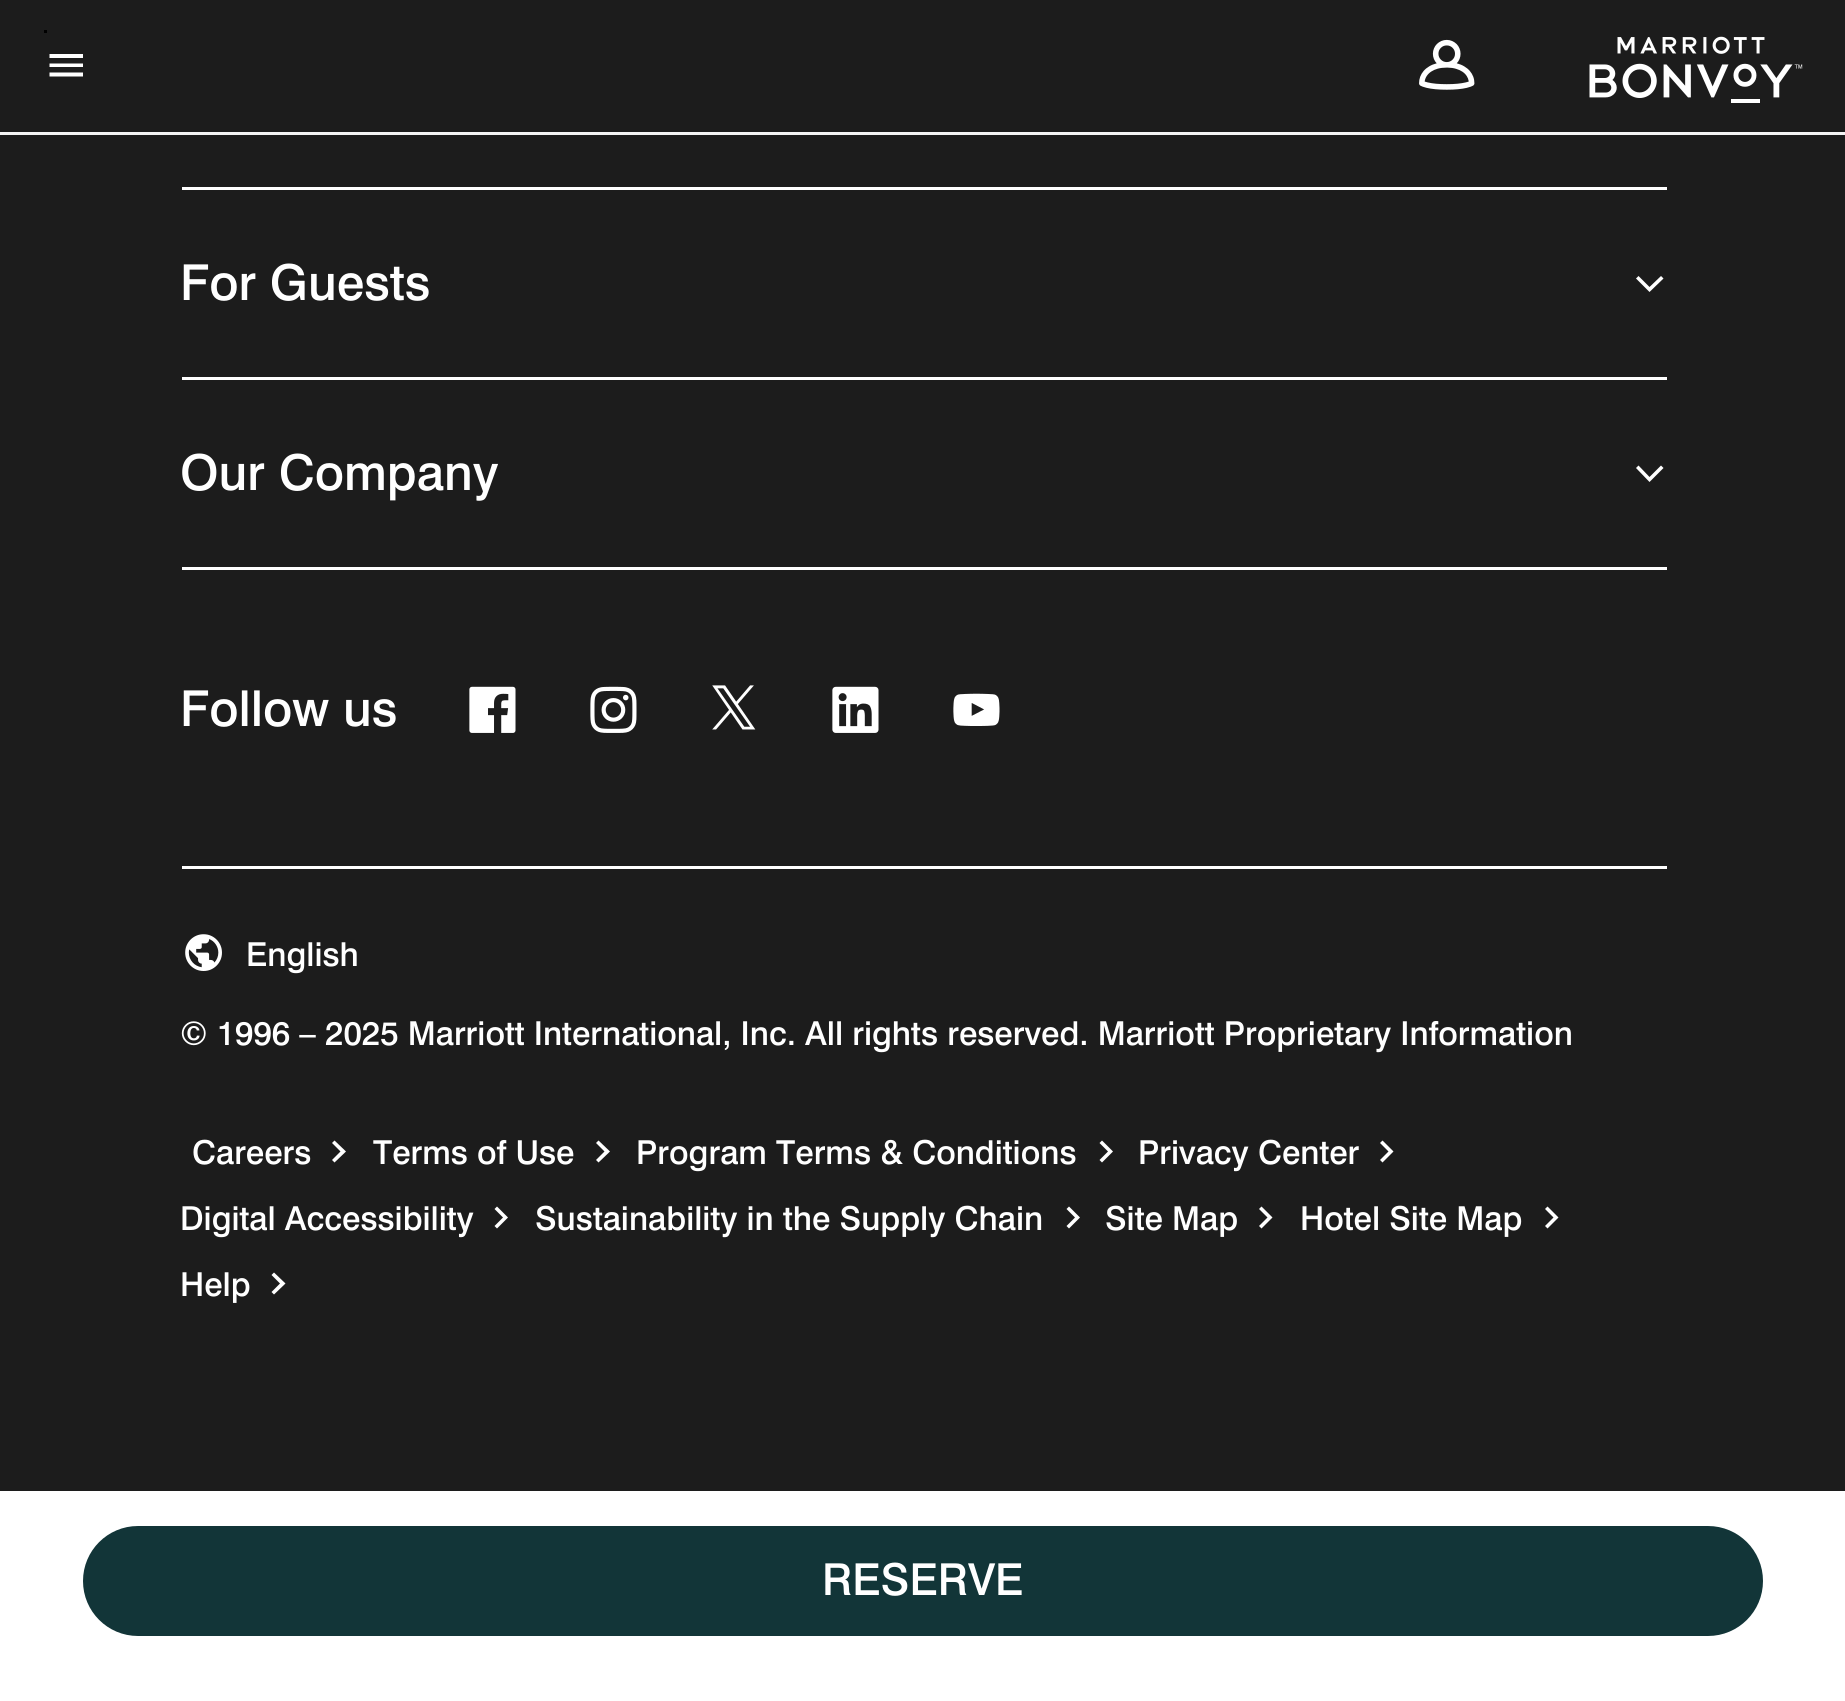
#include <cairo/cairo.h>
#include <math.h>
#include <stddef.h>


static void rounded_rect(cairo_t *cr, double x, double y, double w, double h, double r) {
  cairo_new_sub_path(cr);
  cairo_arc(cr, x + w - r, y + h - r, r, 0, M_PI / 2);
  cairo_arc(cr, x + r, y + h - r, r, M_PI / 2, M_PI);
  cairo_arc(cr, x + r, y + r, r, M_PI, 1.5 * M_PI);
  cairo_arc(cr, x + w - r, y + r, r, 1.5 * M_PI, 2 * M_PI);
  cairo_close_path(cr);
}

static void draw_image(cairo_t *cr, const char *path, double x, double y, double w, double h) {
  cairo_surface_t *image = cairo_image_surface_create_from_png(path);
  cairo_save(cr);
  cairo_set_source_surface(cr, image, x, y);
  cairo_rectangle(cr, x, y, w, h);
  cairo_fill(cr);
  cairo_restore(cr);
  cairo_surface_destroy(image);
}

static void draw(cairo_t *cr) {
  cairo_set_source_rgb(cr, 1, 1, 1);
  cairo_paint(cr);
  cairo_set_source_rgb(cr, 28 / 255.0, 28 / 255.0, 28 / 255.0);
  cairo_rectangle(cr, 0, 135, 1845, 1356);
  cairo_fill(cr);
  cairo_set_source_rgb(cr, 1, 1, 1);
  cairo_rectangle(cr, 182, 187, 1485, 3);
  cairo_fill(cr);
  cairo_rectangle(cr, 182, 377, 1485, 3);
  cairo_fill(cr);
  cairo_new_path(cr);
  cairo_move_to(cr, 1638.5, 276);
  cairo_line_to(cr, 1636, 278.5);
  cairo_line_to(cr, 1649.5, 292);
  cairo_line_to(cr, 1663.5, 278.5);
  cairo_line_to(cr, 1661, 276);
  cairo_line_to(cr, 1649.5, 287);
  cairo_close_path(cr);
  cairo_fill(cr);
  cairo_rectangle(cr, 182, 567, 1485, 3);
  cairo_fill(cr);
  cairo_new_path(cr);
  cairo_move_to(cr, 1638.5, 465.5);
  cairo_line_to(cr, 1636, 468);
  cairo_line_to(cr, 1649.5, 482);
  cairo_line_to(cr, 1663.5, 468);
  cairo_line_to(cr, 1661, 465.5);
  cairo_line_to(cr, 1649.5, 477);
  cairo_close_path(cr);
  cairo_fill(cr);
  draw_image(cr, "images/1.png", 469, 686, 47, 47);
  draw_image(cr, "images/2.png", 590, 686, 47, 47);
  draw_image(cr, "images/3.png", 712, 685, 44, 45);
  draw_image(cr, "images/4.png", 832, 686, 47, 47);
  draw_image(cr, "images/5.png", 953, 693, 47, 33);
  cairo_rectangle(cr, 182, 866, 1485, 3);
  cairo_fill(cr);
  draw_image(cr, "images/6.png", 185, 934, 37, 37);
  cairo_new_path(cr);
  cairo_move_to(cr, 332, 1160);
  cairo_line_to(cr, 340.5, 1151.5);
  cairo_line_to(cr, 332, 1143);
  cairo_line_to(cr, 334.5, 1140.5);
  cairo_line_to(cr, 346, 1151.5);
  cairo_line_to(cr, 334.5, 1162.5);
  cairo_close_path(cr);
  cairo_fill(cr);
  cairo_new_path(cr);
  cairo_move_to(cr, 596, 1160);
  cairo_line_to(cr, 604.5, 1151.5);
  cairo_line_to(cr, 596, 1143);
  cairo_line_to(cr, 598.5, 1140.5);
  cairo_line_to(cr, 610, 1151.5);
  cairo_line_to(cr, 598.5, 1162.5);
  cairo_close_path(cr);
  cairo_fill(cr);
  cairo_new_path(cr);
  cairo_move_to(cr, 1099.5, 1160);
  cairo_line_to(cr, 1108, 1151.5);
  cairo_line_to(cr, 1099.5, 1143);
  cairo_line_to(cr, 1102, 1140.5);
  cairo_line_to(cr, 1113, 1151.5);
  cairo_line_to(cr, 1102, 1162.5);
  cairo_close_path(cr);
  cairo_fill(cr);
  cairo_new_path(cr);
  cairo_move_to(cr, 1380, 1160);
  cairo_line_to(cr, 1388.5, 1151.5);
  cairo_line_to(cr, 1380, 1143);
  cairo_line_to(cr, 1382.5, 1140.5);
  cairo_line_to(cr, 1393.5, 1151.5);
  cairo_line_to(cr, 1382.5, 1162.5);
  cairo_close_path(cr);
  cairo_fill(cr);
  cairo_new_path(cr);
  cairo_move_to(cr, 494.5, 1226);
  cairo_line_to(cr, 503, 1217.5);
  cairo_line_to(cr, 494.5, 1209);
  cairo_line_to(cr, 497, 1206.5);
  cairo_line_to(cr, 508, 1217.5);
  cairo_line_to(cr, 497, 1228.5);
  cairo_close_path(cr);
  cairo_fill(cr);
  cairo_new_path(cr);
  cairo_move_to(cr, 1066.5, 1226);
  cairo_line_to(cr, 1075, 1217.5);
  cairo_line_to(cr, 1066.5, 1209);
  cairo_line_to(cr, 1069, 1206.5);
  cairo_line_to(cr, 1080, 1217.5);
  cairo_line_to(cr, 1069, 1228.5);
  cairo_close_path(cr);
  cairo_fill(cr);
  cairo_new_path(cr);
  cairo_move_to(cr, 1259, 1226);
  cairo_line_to(cr, 1267.5, 1217.5);
  cairo_line_to(cr, 1259, 1209);
  cairo_line_to(cr, 1261.5, 1206.5);
  cairo_line_to(cr, 1272.5, 1217.5);
  cairo_line_to(cr, 1261.5, 1228.5);
  cairo_close_path(cr);
  cairo_fill(cr);
  cairo_new_path(cr);
  cairo_move_to(cr, 1545, 1226);
  cairo_line_to(cr, 1553.5, 1217.5);
  cairo_line_to(cr, 1545, 1209);
  cairo_line_to(cr, 1547.5, 1206.5);
  cairo_line_to(cr, 1558.5, 1217.5);
  cairo_line_to(cr, 1547.5, 1228.5);
  cairo_close_path(cr);
  cairo_fill(cr);
  cairo_new_path(cr);
  cairo_move_to(cr, 271.5, 1292);
  cairo_line_to(cr, 280, 1283.5);
  cairo_line_to(cr, 271.5, 1275);
  cairo_line_to(cr, 274, 1272.5);
  cairo_line_to(cr, 285.5, 1283.5);
  cairo_line_to(cr, 274, 1294.5);
  cairo_close_path(cr);
  cairo_fill(cr);
  cairo_set_source_rgb(cr, 28 / 255.0, 28 / 255.0, 28 / 255.0);
  cairo_rectangle(cr, 0, 0, 1845, 132);
  cairo_fill(cr);
  cairo_set_source_rgb(cr, 0, 0, 0);
  cairo_rectangle(cr, 44, 30, 3, 3);
  cairo_fill(cr);
  cairo_set_source_rgb(cr, 1, 1, 1);
  cairo_new_path(cr);
  cairo_move_to(cr, 49.5, 76.5);
  cairo_line_to(cr, 83, 76.5);
  cairo_line_to(cr, 83, 72.5);
  cairo_line_to(cr, 49.5, 72.5);
  cairo_close_path(cr);
  cairo_move_to(cr, 49.5, 67);
  cairo_line_to(cr, 83, 67);
  cairo_line_to(cr, 83, 63.5);
  cairo_line_to(cr, 49.5, 63.5);
  cairo_close_path(cr);
  cairo_move_to(cr, 49.5, 54);
  cairo_line_to(cr, 49.5, 58);
  cairo_line_to(cr, 83, 58);
  cairo_line_to(cr, 83, 54);
  cairo_close_path(cr);
  cairo_fill(cr);
  draw_image(cr, "images/7.png", 1419, 39, 56, 51);
  draw_image(cr, "images/8.png", 1589, 36, 214, 62);
  cairo_rectangle(cr, 1731, 99, 29, 4);
  cairo_fill(cr);
  cairo_set_source_rgb(cr, 244 / 255.0, 244 / 255.0, 244 / 255.0);
  cairo_rectangle(cr, 0, 132, 1845, 3);
  cairo_fill(cr);
  cairo_set_source_rgb(cr, 18 / 255.0, 53 / 255.0, 56 / 255.0);
  rounded_rect(cr, 83, 1526, 1680, 110, 55);
  cairo_fill(cr);
  cairo_select_font_face(cr, "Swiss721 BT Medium", CAIRO_FONT_SLANT_NORMAL, CAIRO_FONT_WEIGHT_NORMAL);
  cairo_set_font_size(cr, 49.5);
  cairo_set_source_rgb(cr, 1, 1, 1);
  cairo_move_to(cr, 180, 300);
  cairo_show_text(cr, "For Guests");
  cairo_move_to(cr, 180, 490);
  cairo_show_text(cr, "Our Company");
  cairo_move_to(cr, 180, 726);
  cairo_show_text(cr, "Follow us");
  cairo_set_font_size(cr, 33);
  cairo_move_to(cr, 246, 966);
  cairo_show_text(cr, "English");
  cairo_move_to(cr, 180, 1045);
  cairo_show_text(cr, "© 1996 – 2025 Marriott International, Inc. All rights reserved. Marriott Proprietary Information");
  cairo_move_to(cr, 192, 1164);
  cairo_show_text(cr, "Careers");
  cairo_move_to(cr, 373, 1164);
  cairo_show_text(cr, "Terms of Use");
  cairo_move_to(cr, 636, 1164);
  cairo_show_text(cr, "Program Terms & Conditions");
  cairo_move_to(cr, 1138, 1164);
  cairo_show_text(cr, "Privacy Center");
  cairo_move_to(cr, 180, 1230);
  cairo_show_text(cr, "Digital Accessibility");
  cairo_move_to(cr, 535, 1230);
  cairo_show_text(cr, "Sustainability in the Supply Chain");
  cairo_move_to(cr, 1105, 1230);
  cairo_show_text(cr, "Site Map");
  cairo_move_to(cr, 1300, 1230);
  cairo_show_text(cr, "Hotel Site Map");
  cairo_move_to(cr, 180, 1296);
  cairo_show_text(cr, "Help");
  cairo_set_font_size(cr, 44);
  cairo_move_to(cr, 822, 1595);
  cairo_show_text(cr, "RESERVE");
}

int main(void) {
  cairo_surface_t *surface = cairo_image_surface_create(CAIRO_FORMAT_RGB24, 1845, 1701);
  cairo_t *cr = cairo_create(surface);
  cairo_font_options_t *options = cairo_font_options_create();
  cairo_font_options_set_hint_metrics(options, CAIRO_HINT_METRICS_OFF);
  cairo_font_options_set_hint_style(options, CAIRO_HINT_STYLE_NONE);
  cairo_set_font_options(cr, options);
  cairo_set_miter_limit(cr, 4);
  draw(cr);
  cairo_surface_write_to_png(surface, "out.png");
  cairo_font_options_destroy(options);
  cairo_destroy(cr);
  cairo_surface_destroy(surface);
  return 0;
}
